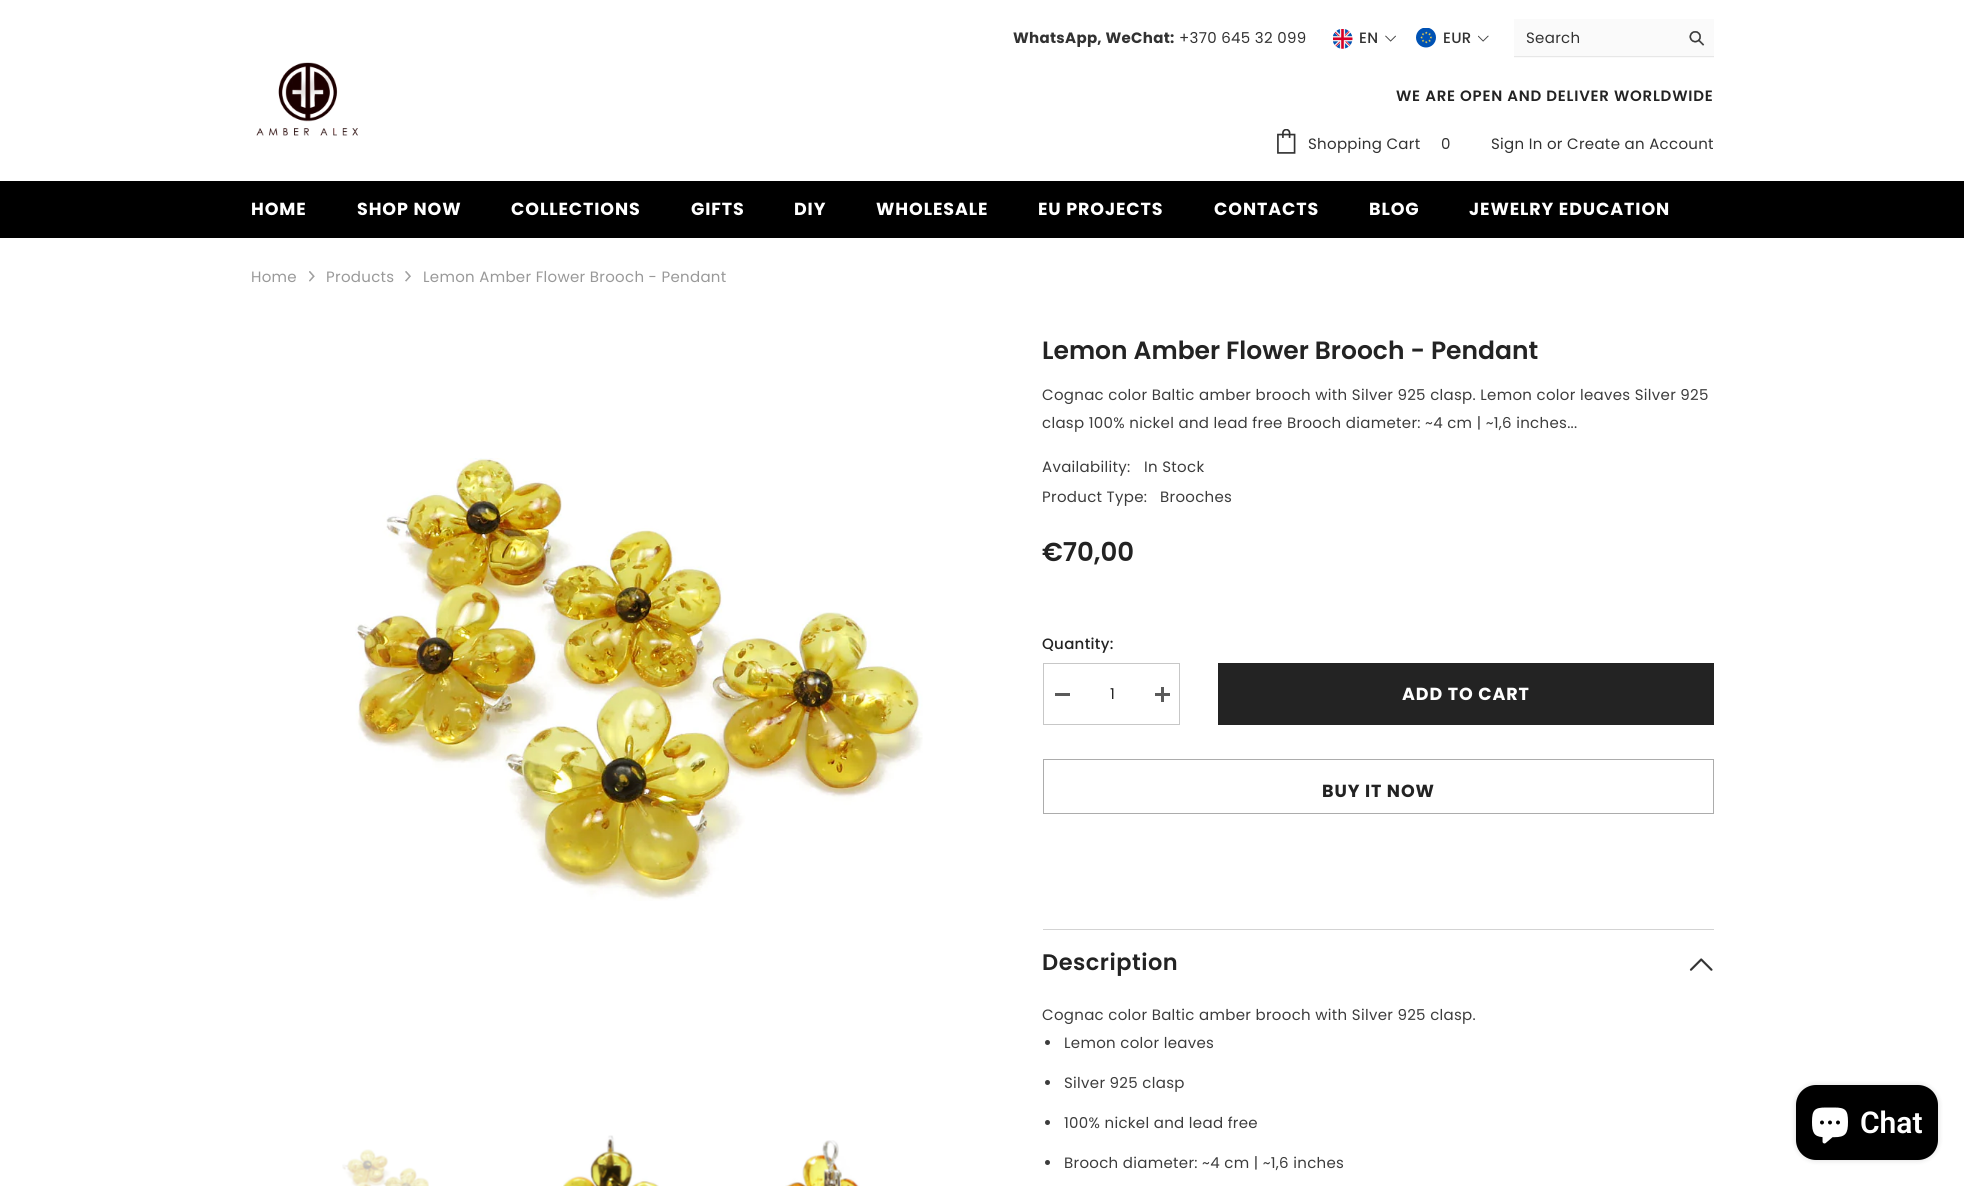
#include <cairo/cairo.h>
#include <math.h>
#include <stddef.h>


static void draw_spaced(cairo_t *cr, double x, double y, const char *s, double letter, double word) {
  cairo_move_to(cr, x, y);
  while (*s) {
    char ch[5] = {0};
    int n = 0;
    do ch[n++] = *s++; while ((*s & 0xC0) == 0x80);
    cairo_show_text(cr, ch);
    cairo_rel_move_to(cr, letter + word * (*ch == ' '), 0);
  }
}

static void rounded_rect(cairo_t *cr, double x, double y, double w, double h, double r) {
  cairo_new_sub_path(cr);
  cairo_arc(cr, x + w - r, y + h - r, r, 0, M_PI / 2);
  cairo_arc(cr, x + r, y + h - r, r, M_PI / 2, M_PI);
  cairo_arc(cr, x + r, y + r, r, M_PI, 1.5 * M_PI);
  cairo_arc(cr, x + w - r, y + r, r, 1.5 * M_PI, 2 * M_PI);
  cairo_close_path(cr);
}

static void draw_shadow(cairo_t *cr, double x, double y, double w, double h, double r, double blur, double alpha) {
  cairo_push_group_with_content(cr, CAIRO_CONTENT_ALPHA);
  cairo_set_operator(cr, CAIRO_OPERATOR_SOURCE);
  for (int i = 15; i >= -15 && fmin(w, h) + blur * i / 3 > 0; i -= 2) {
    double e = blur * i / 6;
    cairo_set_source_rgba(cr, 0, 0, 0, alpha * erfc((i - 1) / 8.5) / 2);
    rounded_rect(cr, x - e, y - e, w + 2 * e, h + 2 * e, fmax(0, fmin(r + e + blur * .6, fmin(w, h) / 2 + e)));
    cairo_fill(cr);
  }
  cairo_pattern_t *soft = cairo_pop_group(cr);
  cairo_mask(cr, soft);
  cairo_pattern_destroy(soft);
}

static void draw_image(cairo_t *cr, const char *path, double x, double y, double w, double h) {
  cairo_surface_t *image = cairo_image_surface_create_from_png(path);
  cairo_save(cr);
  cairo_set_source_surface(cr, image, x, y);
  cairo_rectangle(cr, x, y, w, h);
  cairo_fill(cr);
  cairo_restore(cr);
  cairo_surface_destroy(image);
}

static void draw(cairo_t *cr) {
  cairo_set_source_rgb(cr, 1, 1, 1);
  cairo_paint(cr);
  draw_image(cr, "images/1.png", 1333, 29, 20, 20);
  draw_image(cr, "images/2.png", 1385, 35, 11, 7);
  draw_image(cr, "images/3.png", 1416, 28, 20, 20);
  draw_image(cr, "images/4.png", 1478, 35, 11, 7);
  cairo_set_source_rgb(cr, 250 / 255.0, 250 / 255.0, 250 / 255.0);
  cairo_rectangle(cr, 1514, 19, 200, 39);
  cairo_fill(cr);
  cairo_set_source_rgb(cr, 231 / 255.0, 231 / 255.0, 231 / 255.0);
  cairo_rectangle(cr, 1514, 56, 200, 1);
  cairo_fill(cr);
  draw_image(cr, "images/5.png", 1689, 31, 16, 15);
  draw_image(cr, "images/6.png", 256, 62, 102, 74);
  draw_image(cr, "images/7.png", 1277, 129, 19, 25);
  cairo_set_source_rgb(cr, 0, 0, 0);
  cairo_rectangle(cr, 0, 181, 1964, 57);
  cairo_fill(cr);
  draw_image(cr, "images/8.png", 309, 271, 6, 11);
  draw_image(cr, "images/9.png", 405, 271, 6, 11);
  draw_image(cr, "images/10.png", 355, 458, 568, 443);
  draw_image(cr, "images/11.png", 342, 1149, 87, 37);
  draw_image(cr, "images/12.png", 563, 1135, 96, 51);
  draw_image(cr, "images/13.png", 785, 1140, 75, 46);
  cairo_rectangle(cr, 1043.5, 663.5, 136, 61);
  cairo_set_source_rgb(cr, 199 / 255.0, 199 / 255.0, 199 / 255.0);
  cairo_set_line_width(cr, 1);
  cairo_stroke(cr);
  cairo_set_source_rgb(cr, 90 / 255.0, 90 / 255.0, 90 / 255.0);
  cairo_rectangle(cr, 1055, 693, 15, 3);
  cairo_fill(cr);
  cairo_rectangle(cr, 1155, 693, 15, 3);
  cairo_fill(cr);
  cairo_rectangle(cr, 1161, 687, 3, 15);
  cairo_fill(cr);
  cairo_set_source_rgb(cr, 35 / 255.0, 35 / 255.0, 35 / 255.0);
  cairo_rectangle(cr, 1218, 663, 496, 62);
  cairo_fill(cr);
  cairo_rectangle(cr, 1043.5, 759.5, 670, 54);
  cairo_set_source_rgb(cr, 172 / 255.0, 172 / 255.0, 172 / 255.0);
  cairo_stroke(cr);
  cairo_set_source_rgb(cr, 211 / 255.0, 211 / 255.0, 211 / 255.0);
  cairo_rectangle(cr, 1043, 929, 671, 1);
  cairo_fill(cr);
  draw_image(cr, "images/14.png", 1689, 958, 24, 13);
  cairo_set_source_rgb(cr, 60 / 255.0, 60 / 255.0, 60 / 255.0);
  cairo_arc(cr, 1047.5, 1042.5, 2.5, 0, 2 * M_PI);
  cairo_fill(cr);
  cairo_arc(cr, 1047.5, 1082.5, 2.5, 0, 2 * M_PI);
  cairo_fill(cr);
  cairo_arc(cr, 1047.5, 1122.5, 2.5, 0, 2 * M_PI);
  cairo_fill(cr);
  cairo_arc(cr, 1047.5, 1162.5, 2.5, 0, 2 * M_PI);
  cairo_fill(cr);
  cairo_set_source_rgb(cr, 0, 0, 0);
  draw_shadow(cr, 1796, 1085, 142, 75, 20, 3, 0.15);
  cairo_set_source_rgb(cr, 0, 0, 0);
  rounded_rect(cr, 1796, 1085, 142, 75, 20);
  cairo_fill(cr);
  draw_image(cr, "images/15.png", 1812, 1107, 36, 37);
  cairo_select_font_face(cr, "Poppins", CAIRO_FONT_SLANT_NORMAL, CAIRO_FONT_WEIGHT_BOLD);
  cairo_set_font_size(cr, 15);
  cairo_set_source_rgb(cr, 50 / 255.0, 50 / 255.0, 50 / 255.0);
  draw_spaced(cr, 1013, 43, "WhatsApp, WeChat:", 0.3, 0);
  cairo_select_font_face(cr, "Poppins", CAIRO_FONT_SLANT_NORMAL, CAIRO_FONT_WEIGHT_NORMAL);
  draw_spaced(cr, 1179, 43, "+370 645 32 099", 0.3, 0);
  cairo_select_font_face(cr, "Poppins Medium", CAIRO_FONT_SLANT_NORMAL, CAIRO_FONT_WEIGHT_NORMAL);
  draw_spaced(cr, 1359, 43, "EN", 0.3, 0);
  draw_spaced(cr, 1443, 43, "EUR", 0.3, 0);
  cairo_select_font_face(cr, "Poppins", CAIRO_FONT_SLANT_NORMAL, CAIRO_FONT_WEIGHT_NORMAL);
  draw_spaced(cr, 1526, 43, "Search", 0.3, 0);
  cairo_select_font_face(cr, "Poppins SemiBold", CAIRO_FONT_SLANT_NORMAL, CAIRO_FONT_WEIGHT_NORMAL);
  cairo_set_source_rgb(cr, 35 / 255.0, 35 / 255.0, 35 / 255.0);
  draw_spaced(cr, 1396, 101, "WE ARE OPEN AND DELIVER WORLDWIDE", 0.75, 0);
  cairo_select_font_face(cr, "Poppins", CAIRO_FONT_SLANT_NORMAL, CAIRO_FONT_WEIGHT_NORMAL);
  cairo_set_source_rgb(cr, 50 / 255.0, 50 / 255.0, 50 / 255.0);
  draw_spaced(cr, 1308, 149, "Shopping Cart", 0.3, 0);
  cairo_move_to(cr, 1441, 149);
  cairo_show_text(cr, "0");
  draw_spaced(cr, 1491, 149, "Sign In or Create an Account", 0.3, 0);
  cairo_select_font_face(cr, "Poppins", CAIRO_FONT_SLANT_NORMAL, CAIRO_FONT_WEIGHT_BOLD);
  cairo_set_font_size(cr, 17.5);
  cairo_set_source_rgb(cr, 1, 1, 1);
  draw_spaced(cr, 251, 215, "HOME", 0.9, 0);
  draw_spaced(cr, 357, 215, "SHOP NOW", 0.9, 0);
  draw_spaced(cr, 511, 215, "COLLECTIONS", 0.9, 0);
  draw_spaced(cr, 691, 215, "GIFTS", 0.9, 0);
  draw_spaced(cr, 794, 215, "DIY", 0.9, 0);
  draw_spaced(cr, 876, 215, "WHOLESALE", 0.9, 0);
  draw_spaced(cr, 1038, 215, "EU PROJECTS", 0.9, 0);
  draw_spaced(cr, 1214, 215, "CONTACTS", 0.9, 0);
  draw_spaced(cr, 1369, 215, "BLOG", 0.9, 0);
  draw_spaced(cr, 1469, 215, "JEWELRY EDUCATION", 0.9, 0);
  cairo_select_font_face(cr, "Poppins", CAIRO_FONT_SLANT_NORMAL, CAIRO_FONT_WEIGHT_NORMAL);
  cairo_set_font_size(cr, 15);
  cairo_set_source_rgb(cr, 153 / 255.0, 153 / 255.0, 153 / 255.0);
  draw_spaced(cr, 251, 282, "Home", 0.3, 0);
  draw_spaced(cr, 326, 282, "Products", 0.3, 0);
  draw_spaced(cr, 423, 282, "Lemon Amber Flower Brooch - Pendant", 0.3, 0);
  cairo_select_font_face(cr, "Poppins SemiBold", CAIRO_FONT_SLANT_NORMAL, CAIRO_FONT_WEIGHT_NORMAL);
  cairo_set_font_size(cr, 25);
  cairo_set_source_rgb(cr, 35 / 255.0, 35 / 255.0, 35 / 255.0);
  cairo_move_to(cr, 1042, 359);
  cairo_show_text(cr, "Lemon Amber Flower Brooch - Pendant");
  cairo_select_font_face(cr, "Poppins", CAIRO_FONT_SLANT_NORMAL, CAIRO_FONT_WEIGHT_NORMAL);
  cairo_set_font_size(cr, 15);
  cairo_set_source_rgb(cr, 60 / 255.0, 60 / 255.0, 60 / 255.0);
  draw_spaced(cr, 1042, 400, "Cognac color Baltic amber brooch with Silver 925 clasp. Lemon color leaves Silver 925", 0.3, 0);
  draw_spaced(cr, 1042, 428, "clasp 100% nickel and lead free Brooch diameter: ~4 cm | ~1,6 inches...", 0.3, 0);
  draw_spaced(cr, 1042, 472, "Availability:", 0.3, 0);
  draw_spaced(cr, 1144, 472, "In Stock", 0.3, 0);
  draw_spaced(cr, 1042, 502, "Product Type:", 0.3, 0);
  draw_spaced(cr, 1160, 502, "Brooches", 0.3, 0);
  cairo_select_font_face(cr, "Poppins SemiBold", CAIRO_FONT_SLANT_NORMAL, CAIRO_FONT_WEIGHT_NORMAL);
  cairo_set_font_size(cr, 26);
  cairo_set_source_rgb(cr, 35 / 255.0, 35 / 255.0, 35 / 255.0);
  cairo_move_to(cr, 1042, 561);
  cairo_show_text(cr, "€70,00");
  cairo_select_font_face(cr, "Poppins Medium", CAIRO_FONT_SLANT_NORMAL, CAIRO_FONT_WEIGHT_NORMAL);
  cairo_set_font_size(cr, 15);
  draw_spaced(cr, 1042, 649, "Quantity:", 0.3, 0);
  cairo_select_font_face(cr, "Poppins", CAIRO_FONT_SLANT_NORMAL, CAIRO_FONT_WEIGHT_NORMAL);
  draw_spaced(cr, 1110, 699, "1", 0.3, 0);
  cairo_select_font_face(cr, "Poppins", CAIRO_FONT_SLANT_NORMAL, CAIRO_FONT_WEIGHT_BOLD);
  cairo_set_font_size(cr, 17.5);
  cairo_set_source_rgb(cr, 1, 1, 1);
  draw_spaced(cr, 1402, 700, "ADD TO CART", 0.9, 0);
  cairo_set_source_rgb(cr, 35 / 255.0, 35 / 255.0, 35 / 255.0);
  draw_spaced(cr, 1322, 797, "BUY IT NOW", 0.9, 0);
  cairo_select_font_face(cr, "Poppins SemiBold", CAIRO_FONT_SLANT_NORMAL, CAIRO_FONT_WEIGHT_NORMAL);
  cairo_set_font_size(cr, 22.5);
  draw_spaced(cr, 1042, 970, "Description", 0.5, 0);
  cairo_select_font_face(cr, "Poppins", CAIRO_FONT_SLANT_NORMAL, CAIRO_FONT_WEIGHT_NORMAL);
  cairo_set_font_size(cr, 15);
  cairo_set_source_rgb(cr, 60 / 255.0, 60 / 255.0, 60 / 255.0);
  draw_spaced(cr, 1042, 1020, "Cognac color Baltic amber brooch with Silver 925 clasp.", 0.3, 0);
  draw_spaced(cr, 1064, 1048, "Lemon color leaves", 0.3, 0);
  draw_spaced(cr, 1064, 1088, "Silver 925 clasp", 0.3, 0);
  draw_spaced(cr, 1064, 1128, "100% nickel and lead free", 0.3, 0);
  draw_spaced(cr, 1064, 1168, "Brooch diameter: ~4 cm | ~1,6 inches", 0.3, 0);
  cairo_select_font_face(cr, "Roboto SemiBold", CAIRO_FONT_SLANT_NORMAL, CAIRO_FONT_WEIGHT_NORMAL);
  cairo_set_font_size(cr, 30);
  cairo_set_source_rgb(cr, 1, 1, 1);
  cairo_move_to(cr, 1860, 1133);
  cairo_show_text(cr, "Chat");
}

int main(void) {
  cairo_surface_t *surface = cairo_image_surface_create(CAIRO_FORMAT_RGB24, 1964, 1186);
  cairo_t *cr = cairo_create(surface);
  cairo_font_options_t *options = cairo_font_options_create();
  cairo_font_options_set_hint_metrics(options, CAIRO_HINT_METRICS_OFF);
  cairo_font_options_set_hint_style(options, CAIRO_HINT_STYLE_NONE);
  cairo_set_font_options(cr, options);
  cairo_set_miter_limit(cr, 4);
  draw(cr);
  cairo_surface_write_to_png(surface, "out.png");
  cairo_font_options_destroy(options);
  cairo_destroy(cr);
  cairo_surface_destroy(surface);
  return 0;
}
